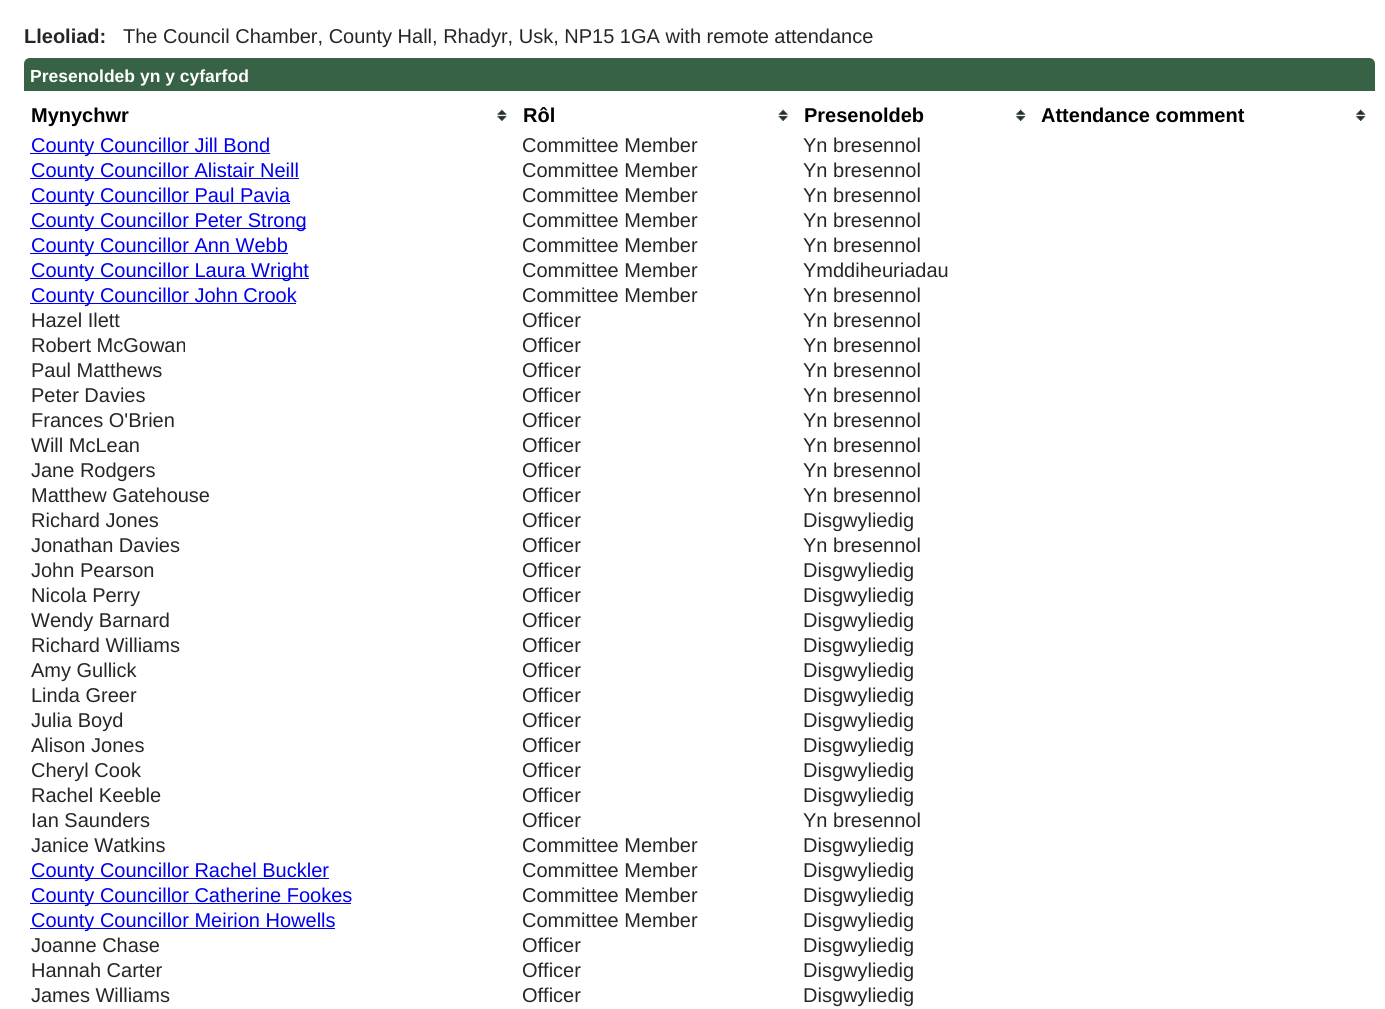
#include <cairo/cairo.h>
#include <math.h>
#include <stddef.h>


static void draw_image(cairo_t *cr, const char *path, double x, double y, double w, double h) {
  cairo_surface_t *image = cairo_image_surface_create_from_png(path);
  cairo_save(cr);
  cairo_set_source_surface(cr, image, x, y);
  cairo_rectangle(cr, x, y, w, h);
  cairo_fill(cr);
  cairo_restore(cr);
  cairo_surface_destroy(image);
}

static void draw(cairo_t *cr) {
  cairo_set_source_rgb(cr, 1, 1, 1);
  cairo_paint(cr);
  cairo_set_source_rgb(cr, 55 / 255.0, 98 / 255.0, 69 / 255.0);
  cairo_new_path(cr);
  cairo_move_to(cr, 30, 58);
  cairo_line_to(cr, 1369, 58);
  cairo_curve_to(cr, 1372.5, 58, 1375, 60.5, 1375, 64);
  cairo_line_to(cr, 1375, 91);
  cairo_line_to(cr, 24, 91);
  cairo_line_to(cr, 24, 64);
  cairo_curve_to(cr, 24, 60.5, 26.5, 58, 30, 58);
  cairo_close_path(cr);
  cairo_fill(cr);
  draw_image(cr, "images/1.png", 497, 109, 10, 12);
  draw_image(cr, "images/2.png", 778, 109, 10, 12);
  draw_image(cr, "images/3.png", 1016, 109, 10, 12);
  draw_image(cr, "images/4.png", 1356, 109, 10, 12);
  cairo_set_source_rgb(cr, 0, 0, 238 / 255.0);
  cairo_rectangle(cr, 30, 153, 240, 1);
  cairo_fill(cr);
  cairo_rectangle(cr, 30, 178, 269, 1);
  cairo_fill(cr);
  cairo_rectangle(cr, 30, 203, 260, 1);
  cairo_fill(cr);
  cairo_rectangle(cr, 30, 228, 276, 1);
  cairo_fill(cr);
  cairo_rectangle(cr, 30, 253, 258, 1);
  cairo_fill(cr);
  cairo_rectangle(cr, 30, 278, 279, 1);
  cairo_fill(cr);
  cairo_rectangle(cr, 30, 303, 266, 1);
  cairo_fill(cr);
  cairo_rectangle(cr, 30, 878, 299, 1);
  cairo_fill(cr);
  cairo_rectangle(cr, 30, 903, 321, 1);
  cairo_fill(cr);
  cairo_rectangle(cr, 30, 928, 305, 1);
  cairo_fill(cr);
  cairo_select_font_face(cr, "Liberation Sans", CAIRO_FONT_SLANT_NORMAL, CAIRO_FONT_WEIGHT_BOLD);
  cairo_set_font_size(cr, 20);
  cairo_set_source_rgb(cr, 38 / 255.0, 38 / 255.0, 38 / 255.0);
  cairo_move_to(cr, 24, 43);
  cairo_show_text(cr, "Lleoliad:");
  cairo_select_font_face(cr, "Liberation Sans", CAIRO_FONT_SLANT_NORMAL, CAIRO_FONT_WEIGHT_NORMAL);
  cairo_move_to(cr, 123, 43);
  cairo_show_text(cr, "The Council Chamber, County Hall, Rhadyr, Usk, NP15 1GA with remote attendance");
  cairo_select_font_face(cr, "Liberation Sans", CAIRO_FONT_SLANT_NORMAL, CAIRO_FONT_WEIGHT_BOLD);
  cairo_set_font_size(cr, 17.5);
  cairo_set_source_rgb(cr, 1, 1, 1);
  cairo_move_to(cr, 30, 82);
  cairo_show_text(cr, "Presenoldeb yn y cyfarfod");
  cairo_set_font_size(cr, 20);
  cairo_set_source_rgb(cr, 0, 0, 0);
  cairo_move_to(cr, 31, 122);
  cairo_show_text(cr, "Mynychwr");
  cairo_move_to(cr, 523, 122);
  cairo_show_text(cr, "Rôl");
  cairo_move_to(cr, 804, 122);
  cairo_show_text(cr, "Presenoldeb");
  cairo_move_to(cr, 1041, 122);
  cairo_show_text(cr, "Attendance comment");
  cairo_select_font_face(cr, "Liberation Sans", CAIRO_FONT_SLANT_NORMAL, CAIRO_FONT_WEIGHT_NORMAL);
  cairo_set_source_rgb(cr, 0, 0, 238 / 255.0);
  cairo_move_to(cr, 31, 152);
  cairo_show_text(cr, "County Councillor Jill Bond");
  cairo_set_source_rgb(cr, 38 / 255.0, 38 / 255.0, 38 / 255.0);
  cairo_move_to(cr, 522, 152);
  cairo_show_text(cr, "Committee Member");
  cairo_move_to(cr, 803, 152);
  cairo_show_text(cr, "Yn bresennol");
  cairo_set_source_rgb(cr, 0, 0, 238 / 255.0);
  cairo_move_to(cr, 31, 177);
  cairo_show_text(cr, "County Councillor Alistair Neill");
  cairo_set_source_rgb(cr, 38 / 255.0, 38 / 255.0, 38 / 255.0);
  cairo_move_to(cr, 522, 177);
  cairo_show_text(cr, "Committee Member");
  cairo_move_to(cr, 803, 177);
  cairo_show_text(cr, "Yn bresennol");
  cairo_set_source_rgb(cr, 0, 0, 238 / 255.0);
  cairo_move_to(cr, 31, 202);
  cairo_show_text(cr, "County Councillor Paul Pavia");
  cairo_set_source_rgb(cr, 38 / 255.0, 38 / 255.0, 38 / 255.0);
  cairo_move_to(cr, 522, 202);
  cairo_show_text(cr, "Committee Member");
  cairo_move_to(cr, 803, 202);
  cairo_show_text(cr, "Yn bresennol");
  cairo_set_source_rgb(cr, 0, 0, 238 / 255.0);
  cairo_move_to(cr, 31, 227);
  cairo_show_text(cr, "County Councillor Peter Strong");
  cairo_set_source_rgb(cr, 38 / 255.0, 38 / 255.0, 38 / 255.0);
  cairo_move_to(cr, 522, 227);
  cairo_show_text(cr, "Committee Member");
  cairo_move_to(cr, 803, 227);
  cairo_show_text(cr, "Yn bresennol");
  cairo_set_source_rgb(cr, 0, 0, 238 / 255.0);
  cairo_move_to(cr, 31, 252);
  cairo_show_text(cr, "County Councillor Ann Webb");
  cairo_set_source_rgb(cr, 38 / 255.0, 38 / 255.0, 38 / 255.0);
  cairo_move_to(cr, 522, 252);
  cairo_show_text(cr, "Committee Member");
  cairo_move_to(cr, 803, 252);
  cairo_show_text(cr, "Yn bresennol");
  cairo_set_source_rgb(cr, 0, 0, 238 / 255.0);
  cairo_move_to(cr, 31, 277);
  cairo_show_text(cr, "County Councillor Laura Wright");
  cairo_set_source_rgb(cr, 38 / 255.0, 38 / 255.0, 38 / 255.0);
  cairo_move_to(cr, 522, 277);
  cairo_show_text(cr, "Committee Member");
  cairo_move_to(cr, 803, 277);
  cairo_show_text(cr, "Ymddiheuriadau");
  cairo_set_source_rgb(cr, 0, 0, 238 / 255.0);
  cairo_move_to(cr, 31, 302);
  cairo_show_text(cr, "County Councillor John Crook");
  cairo_set_source_rgb(cr, 38 / 255.0, 38 / 255.0, 38 / 255.0);
  cairo_move_to(cr, 522, 302);
  cairo_show_text(cr, "Committee Member");
  cairo_move_to(cr, 803, 302);
  cairo_show_text(cr, "Yn bresennol");
  cairo_move_to(cr, 31, 327);
  cairo_show_text(cr, "Hazel Ilett");
  cairo_move_to(cr, 522, 327);
  cairo_show_text(cr, "Officer");
  cairo_move_to(cr, 803, 327);
  cairo_show_text(cr, "Yn bresennol");
  cairo_move_to(cr, 31, 352);
  cairo_show_text(cr, "Robert McGowan");
  cairo_move_to(cr, 522, 352);
  cairo_show_text(cr, "Officer");
  cairo_move_to(cr, 803, 352);
  cairo_show_text(cr, "Yn bresennol");
  cairo_move_to(cr, 31, 377);
  cairo_show_text(cr, "Paul Matthews");
  cairo_move_to(cr, 522, 377);
  cairo_show_text(cr, "Officer");
  cairo_move_to(cr, 803, 377);
  cairo_show_text(cr, "Yn bresennol");
  cairo_move_to(cr, 31, 402);
  cairo_show_text(cr, "Peter Davies");
  cairo_move_to(cr, 522, 402);
  cairo_show_text(cr, "Officer");
  cairo_move_to(cr, 803, 402);
  cairo_show_text(cr, "Yn bresennol");
  cairo_move_to(cr, 31, 427);
  cairo_show_text(cr, "Frances O'Brien");
  cairo_move_to(cr, 522, 427);
  cairo_show_text(cr, "Officer");
  cairo_move_to(cr, 803, 427);
  cairo_show_text(cr, "Yn bresennol");
  cairo_move_to(cr, 31, 452);
  cairo_show_text(cr, "Will McLean");
  cairo_move_to(cr, 522, 452);
  cairo_show_text(cr, "Officer");
  cairo_move_to(cr, 803, 452);
  cairo_show_text(cr, "Yn bresennol");
  cairo_move_to(cr, 31, 477);
  cairo_show_text(cr, "Jane Rodgers");
  cairo_move_to(cr, 522, 477);
  cairo_show_text(cr, "Officer");
  cairo_move_to(cr, 803, 477);
  cairo_show_text(cr, "Yn bresennol");
  cairo_move_to(cr, 31, 502);
  cairo_show_text(cr, "Matthew Gatehouse");
  cairo_move_to(cr, 522, 502);
  cairo_show_text(cr, "Officer");
  cairo_move_to(cr, 803, 502);
  cairo_show_text(cr, "Yn bresennol");
  cairo_move_to(cr, 31, 527);
  cairo_show_text(cr, "Richard Jones");
  cairo_move_to(cr, 522, 527);
  cairo_show_text(cr, "Officer");
  cairo_move_to(cr, 803, 527);
  cairo_show_text(cr, "Disgwyliedig");
  cairo_move_to(cr, 31, 552);
  cairo_show_text(cr, "Jonathan Davies");
  cairo_move_to(cr, 522, 552);
  cairo_show_text(cr, "Officer");
  cairo_move_to(cr, 803, 552);
  cairo_show_text(cr, "Yn bresennol");
  cairo_move_to(cr, 31, 577);
  cairo_show_text(cr, "John Pearson");
  cairo_move_to(cr, 522, 577);
  cairo_show_text(cr, "Officer");
  cairo_move_to(cr, 803, 577);
  cairo_show_text(cr, "Disgwyliedig");
  cairo_move_to(cr, 31, 602);
  cairo_show_text(cr, "Nicola Perry");
  cairo_move_to(cr, 522, 602);
  cairo_show_text(cr, "Officer");
  cairo_move_to(cr, 803, 602);
  cairo_show_text(cr, "Disgwyliedig");
  cairo_move_to(cr, 31, 627);
  cairo_show_text(cr, "Wendy Barnard");
  cairo_move_to(cr, 522, 627);
  cairo_show_text(cr, "Officer");
  cairo_move_to(cr, 803, 627);
  cairo_show_text(cr, "Disgwyliedig");
  cairo_move_to(cr, 31, 652);
  cairo_show_text(cr, "Richard Williams");
  cairo_move_to(cr, 522, 652);
  cairo_show_text(cr, "Officer");
  cairo_move_to(cr, 803, 652);
  cairo_show_text(cr, "Disgwyliedig");
  cairo_move_to(cr, 31, 677);
  cairo_show_text(cr, "Amy Gullick");
  cairo_move_to(cr, 522, 677);
  cairo_show_text(cr, "Officer");
  cairo_move_to(cr, 803, 677);
  cairo_show_text(cr, "Disgwyliedig");
  cairo_move_to(cr, 31, 702);
  cairo_show_text(cr, "Linda Greer");
  cairo_move_to(cr, 522, 702);
  cairo_show_text(cr, "Officer");
  cairo_move_to(cr, 803, 702);
  cairo_show_text(cr, "Disgwyliedig");
  cairo_move_to(cr, 31, 727);
  cairo_show_text(cr, "Julia Boyd");
  cairo_move_to(cr, 522, 727);
  cairo_show_text(cr, "Officer");
  cairo_move_to(cr, 803, 727);
  cairo_show_text(cr, "Disgwyliedig");
  cairo_move_to(cr, 31, 752);
  cairo_show_text(cr, "Alison Jones");
  cairo_move_to(cr, 522, 752);
  cairo_show_text(cr, "Officer");
  cairo_move_to(cr, 803, 752);
  cairo_show_text(cr, "Disgwyliedig");
  cairo_move_to(cr, 31, 777);
  cairo_show_text(cr, "Cheryl Cook");
  cairo_move_to(cr, 522, 777);
  cairo_show_text(cr, "Officer");
  cairo_move_to(cr, 803, 777);
  cairo_show_text(cr, "Disgwyliedig");
  cairo_move_to(cr, 31, 802);
  cairo_show_text(cr, "Rachel Keeble");
  cairo_move_to(cr, 522, 802);
  cairo_show_text(cr, "Officer");
  cairo_move_to(cr, 803, 802);
  cairo_show_text(cr, "Disgwyliedig");
  cairo_move_to(cr, 31, 827);
  cairo_show_text(cr, "Ian Saunders");
  cairo_move_to(cr, 522, 827);
  cairo_show_text(cr, "Officer");
  cairo_move_to(cr, 803, 827);
  cairo_show_text(cr, "Yn bresennol");
  cairo_move_to(cr, 31, 852);
  cairo_show_text(cr, "Janice Watkins");
  cairo_move_to(cr, 522, 852);
  cairo_show_text(cr, "Committee Member");
  cairo_move_to(cr, 803, 852);
  cairo_show_text(cr, "Disgwyliedig");
  cairo_set_source_rgb(cr, 0, 0, 238 / 255.0);
  cairo_move_to(cr, 31, 877);
  cairo_show_text(cr, "County Councillor Rachel Buckler");
  cairo_set_source_rgb(cr, 38 / 255.0, 38 / 255.0, 38 / 255.0);
  cairo_move_to(cr, 522, 877);
  cairo_show_text(cr, "Committee Member");
  cairo_move_to(cr, 803, 877);
  cairo_show_text(cr, "Disgwyliedig");
  cairo_set_source_rgb(cr, 0, 0, 238 / 255.0);
  cairo_move_to(cr, 31, 902);
  cairo_show_text(cr, "County Councillor Catherine Fookes");
  cairo_set_source_rgb(cr, 38 / 255.0, 38 / 255.0, 38 / 255.0);
  cairo_move_to(cr, 522, 902);
  cairo_show_text(cr, "Committee Member");
  cairo_move_to(cr, 803, 902);
  cairo_show_text(cr, "Disgwyliedig");
  cairo_set_source_rgb(cr, 0, 0, 238 / 255.0);
  cairo_move_to(cr, 31, 927);
  cairo_show_text(cr, "County Councillor Meirion Howells");
  cairo_set_source_rgb(cr, 38 / 255.0, 38 / 255.0, 38 / 255.0);
  cairo_move_to(cr, 522, 927);
  cairo_show_text(cr, "Committee Member");
  cairo_move_to(cr, 803, 927);
  cairo_show_text(cr, "Disgwyliedig");
  cairo_move_to(cr, 31, 952);
  cairo_show_text(cr, "Joanne Chase");
  cairo_move_to(cr, 522, 952);
  cairo_show_text(cr, "Officer");
  cairo_move_to(cr, 803, 952);
  cairo_show_text(cr, "Disgwyliedig");
  cairo_move_to(cr, 31, 977);
  cairo_show_text(cr, "Hannah Carter");
  cairo_move_to(cr, 522, 977);
  cairo_show_text(cr, "Officer");
  cairo_move_to(cr, 803, 977);
  cairo_show_text(cr, "Disgwyliedig");
  cairo_move_to(cr, 31, 1002);
  cairo_show_text(cr, "James Williams");
  cairo_move_to(cr, 522, 1002);
  cairo_show_text(cr, "Officer");
  cairo_move_to(cr, 803, 1002);
  cairo_show_text(cr, "Disgwyliedig");
}

int main(void) {
  cairo_surface_t *surface = cairo_image_surface_create(CAIRO_FORMAT_RGB24, 1385, 1009);
  cairo_t *cr = cairo_create(surface);
  cairo_font_options_t *options = cairo_font_options_create();
  cairo_font_options_set_hint_metrics(options, CAIRO_HINT_METRICS_OFF);
  cairo_font_options_set_hint_style(options, CAIRO_HINT_STYLE_NONE);
  cairo_set_font_options(cr, options);
  cairo_set_miter_limit(cr, 4);
  draw(cr);
  cairo_surface_write_to_png(surface, "out.png");
  cairo_font_options_destroy(options);
  cairo_destroy(cr);
  cairo_surface_destroy(surface);
  return 0;
}
